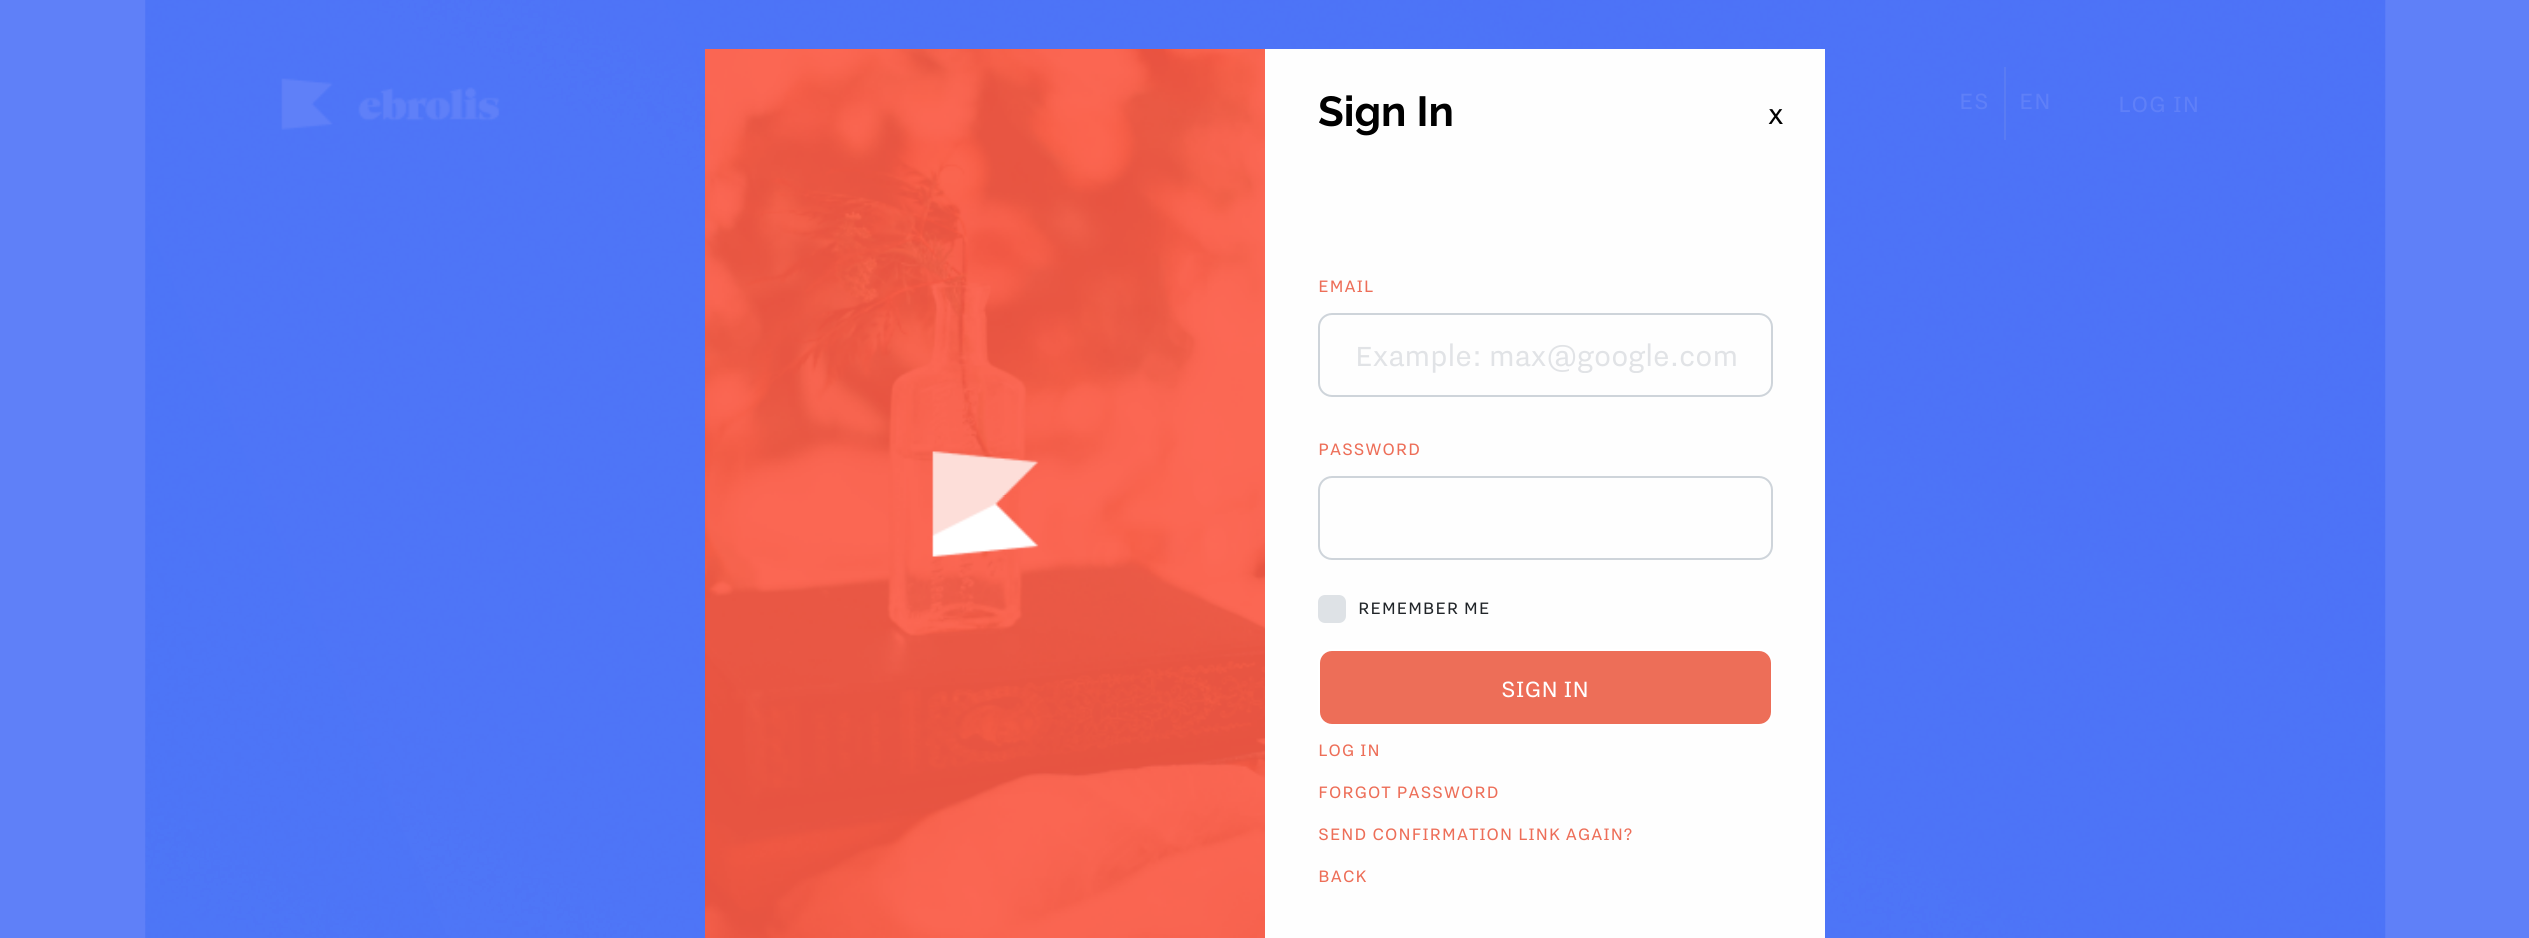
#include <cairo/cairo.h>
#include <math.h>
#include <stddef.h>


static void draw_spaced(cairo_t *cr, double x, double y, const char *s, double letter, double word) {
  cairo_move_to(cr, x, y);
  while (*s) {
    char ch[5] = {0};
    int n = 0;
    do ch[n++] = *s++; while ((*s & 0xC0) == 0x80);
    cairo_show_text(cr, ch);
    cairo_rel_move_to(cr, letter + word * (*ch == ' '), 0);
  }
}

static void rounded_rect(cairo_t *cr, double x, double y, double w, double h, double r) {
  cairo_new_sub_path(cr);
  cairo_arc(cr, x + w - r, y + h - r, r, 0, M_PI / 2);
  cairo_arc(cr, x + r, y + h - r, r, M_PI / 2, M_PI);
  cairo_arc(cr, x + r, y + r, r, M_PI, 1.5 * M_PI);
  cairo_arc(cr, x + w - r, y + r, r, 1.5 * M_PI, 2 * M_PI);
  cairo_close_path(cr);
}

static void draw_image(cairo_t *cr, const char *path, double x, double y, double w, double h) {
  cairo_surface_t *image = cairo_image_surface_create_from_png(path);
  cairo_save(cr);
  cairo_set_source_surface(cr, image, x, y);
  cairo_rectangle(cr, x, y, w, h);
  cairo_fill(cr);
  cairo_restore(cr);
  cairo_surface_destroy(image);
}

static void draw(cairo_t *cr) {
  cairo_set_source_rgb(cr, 95 / 255.0, 128 / 255.0, 248 / 255.0);
  cairo_paint(cr);
  draw_image(cr, "images/2.png", 145, 0, 2241, 938);
  cairo_set_source_rgb(cr, 254 / 255.0, 254 / 255.0, 254 / 255.0);
  cairo_rectangle(cr, 1265, 49, 560, 889);
  cairo_fill(cr);
  draw_image(cr, "images/1.png", 705, 49, 560, 889);
  rounded_rect(cr, 1319, 314, 453, 82, 13);
  cairo_set_source_rgb(cr, 206 / 255.0, 212 / 255.0, 218 / 255.0);
  cairo_stroke(cr);
  rounded_rect(cr, 1319, 477, 453, 82, 13);
  cairo_stroke(cr);
  cairo_set_source_rgb(cr, 222 / 255.0, 226 / 255.0, 230 / 255.0);
  rounded_rect(cr, 1318, 595, 28, 28, 7);
  cairo_fill(cr);
  cairo_set_source_rgb(cr, 237 / 255.0, 110 / 255.0, 88 / 255.0);
  rounded_rect(cr, 1319, 650, 453, 75, 13);
  cairo_fill_preserve(cr);
  cairo_set_source_rgb(cr, 1, 1, 1);
  cairo_stroke(cr);
  draw_image(cr, "images/3.png", 281, 78, 219, 52);
  cairo_set_source_rgb(cr, 90 / 255.0, 124 / 255.0, 243 / 255.0);
  cairo_rectangle(cr, 2004, 67, 2, 73);
  cairo_fill(cr);
  cairo_select_font_face(cr, "Raleway", CAIRO_FONT_SLANT_NORMAL, CAIRO_FONT_WEIGHT_BOLD);
  cairo_set_font_size(cr, 42);
  cairo_set_source_rgb(cr, 0, 0, 0);
  cairo_move_to(cr, 1318, 126);
  cairo_show_text(cr, "Sign In");
  cairo_select_font_face(cr, "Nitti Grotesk", CAIRO_FONT_SLANT_NORMAL, CAIRO_FONT_WEIGHT_NORMAL);
  cairo_set_font_size(cr, 21);
  cairo_set_source_rgb(cr, 237 / 255.0, 110 / 255.0, 88 / 255.0);
  draw_spaced(cr, 1318, 292, "EMAIL", 0.7, 0);
  cairo_save(cr);
  cairo_rectangle(cr, 1355, 338, 381, 35);
  cairo_clip(cr);
  cairo_set_font_size(cr, 35);
  cairo_set_source_rgb(cr, 225 / 255.0, 227 / 255.0, 230 / 255.0);
  cairo_move_to(cr, 1355, 366);
  cairo_show_text(cr, "Example: max@google.com");
  cairo_restore(cr);
  draw_spaced(cr, 1318, 455, "PASSWORD", 0.7, 0);
  cairo_set_source_rgb(cr, 33 / 255.0, 37 / 255.0, 41 / 255.0);
  draw_spaced(cr, 1358, 614, "REMEMBER ME", 0.7, 0);
  cairo_set_font_size(cr, 28);
  cairo_set_source_rgb(cr, 1, 1, 1);
  cairo_move_to(cr, 1501, 697);
  cairo_show_text(cr, "SIGN IN");
  cairo_set_font_size(cr, 21);
  cairo_set_source_rgb(cr, 237 / 255.0, 110 / 255.0, 88 / 255.0);
  draw_spaced(cr, 1318, 756, "LOG IN", 0.7, 0);
  draw_spaced(cr, 1318, 798, "FORGOT PASSWORD", 0.7, 0);
  draw_spaced(cr, 1318, 840, "SEND CONFIRMATION LINK AGAIN?", 0.7, 0);
  draw_spaced(cr, 1318, 882, "BACK", 0.7, 0);
  cairo_set_font_size(cr, 35);
  cairo_set_source_rgb(cr, 0, 0, 0);
  cairo_move_to(cr, 1768, 124);
  cairo_show_text(cr, "x");
  cairo_set_font_size(cr, 28);
  cairo_set_source_rgb(cr, 95 / 255.0, 128 / 255.0, 248 / 255.0);
  draw_spaced(cr, 1959, 109, "ES", 0.7, 0);
  draw_spaced(cr, 2019, 109, "EN", 0.7, 0);
  draw_spaced(cr, 2118, 112, "LOG IN", 0.7, 0);
}

int main(void) {
  cairo_surface_t *surface = cairo_image_surface_create(CAIRO_FORMAT_RGB24, 2529, 938);
  cairo_t *cr = cairo_create(surface);
  cairo_font_options_t *options = cairo_font_options_create();
  cairo_font_options_set_hint_metrics(options, CAIRO_HINT_METRICS_OFF);
  cairo_font_options_set_hint_style(options, CAIRO_HINT_STYLE_NONE);
  cairo_set_font_options(cr, options);
  cairo_set_miter_limit(cr, 4);
  draw(cr);
  cairo_surface_write_to_png(surface, "out.png");
  cairo_font_options_destroy(options);
  cairo_destroy(cr);
  cairo_surface_destroy(surface);
  return 0;
}
